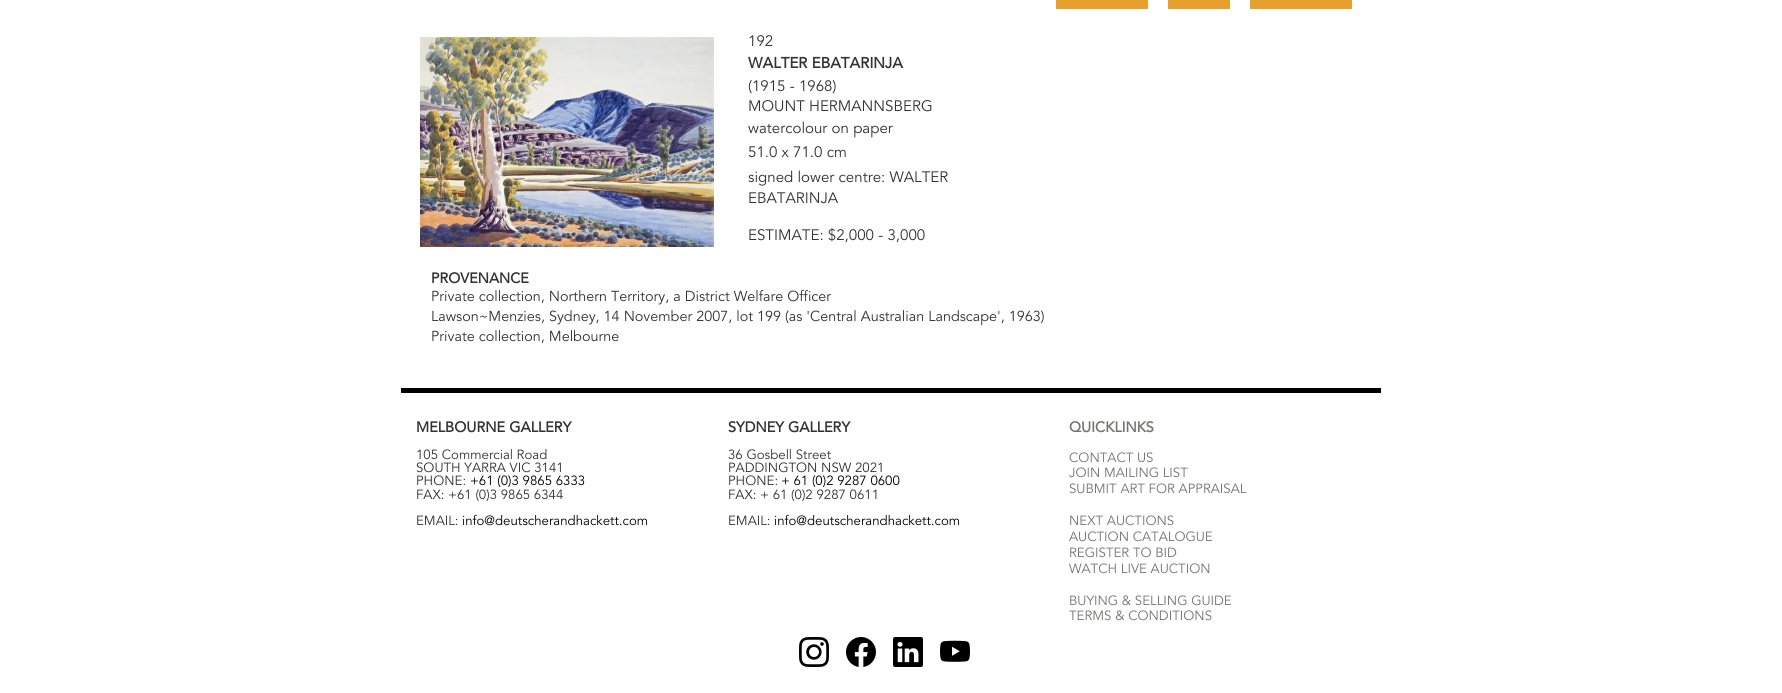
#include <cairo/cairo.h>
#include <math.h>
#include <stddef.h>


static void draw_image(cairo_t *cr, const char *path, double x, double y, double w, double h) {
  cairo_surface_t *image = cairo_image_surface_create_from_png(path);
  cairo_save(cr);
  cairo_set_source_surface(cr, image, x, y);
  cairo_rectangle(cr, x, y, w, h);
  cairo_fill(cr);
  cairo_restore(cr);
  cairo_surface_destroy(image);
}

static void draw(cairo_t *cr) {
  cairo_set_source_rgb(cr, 1, 1, 1);
  cairo_paint(cr);
  cairo_set_source_rgb(cr, 231 / 255.0, 159 / 255.0, 48 / 255.0);
  cairo_rectangle(cr, 1056, 0, 92, 9);
  cairo_fill(cr);
  cairo_rectangle(cr, 1168, 0, 62, 9);
  cairo_fill(cr);
  cairo_rectangle(cr, 1250, 0, 102, 9);
  cairo_fill(cr);
  draw_image(cr, "images/1.png", 420, 37, 294, 210);
  cairo_set_source_rgb(cr, 0, 0, 0);
  cairo_rectangle(cr, 401, 388, 980, 5);
  cairo_fill(cr);
  draw_image(cr, "images/2.png", 799, 637, 30, 30);
  draw_image(cr, "images/3.png", 846, 637, 30, 30);
  draw_image(cr, "images/4.png", 893, 637, 30, 30);
  draw_image(cr, "images/5.png", 940, 640, 30, 22);
  cairo_select_font_face(cr, "Avenir", CAIRO_FONT_SLANT_NORMAL, CAIRO_FONT_WEIGHT_NORMAL);
  cairo_set_font_size(cr, 15.1);
  cairo_set_source_rgb(cr, 51 / 255.0, 51 / 255.0, 51 / 255.0);
  cairo_move_to(cr, 748, 46);
  cairo_show_text(cr, "192");
  cairo_select_font_face(cr, "Avenir", CAIRO_FONT_SLANT_NORMAL, CAIRO_FONT_WEIGHT_BOLD);
  cairo_move_to(cr, 748, 68);
  cairo_show_text(cr, "WALTER EBATARINJA");
  cairo_select_font_face(cr, "Avenir", CAIRO_FONT_SLANT_NORMAL, CAIRO_FONT_WEIGHT_NORMAL);
  cairo_move_to(cr, 748, 91);
  cairo_show_text(cr, "(1915 - 1968)");
  cairo_move_to(cr, 748, 111);
  cairo_show_text(cr, "MOUNT HERMANNSBERG");
  cairo_move_to(cr, 748, 133);
  cairo_show_text(cr, "watercolour on paper");
  cairo_move_to(cr, 748, 157);
  cairo_show_text(cr, "51.0 x 71.0 cm");
  cairo_move_to(cr, 748, 182);
  cairo_show_text(cr, "signed lower centre: WALTER");
  cairo_move_to(cr, 748, 203);
  cairo_show_text(cr, "EBATARINJA");
  cairo_move_to(cr, 748, 240);
  cairo_show_text(cr, "ESTIMATE: $2,000 - 3,000");
  cairo_select_font_face(cr, "Avenir", CAIRO_FONT_SLANT_NORMAL, CAIRO_FONT_WEIGHT_BOLD);
  cairo_set_font_size(cr, 14.4);
  cairo_move_to(cr, 431, 283);
  cairo_show_text(cr, "PROVENANCE");
  cairo_select_font_face(cr, "Avenir", CAIRO_FONT_SLANT_NORMAL, CAIRO_FONT_WEIGHT_NORMAL);
  cairo_move_to(cr, 431, 301);
  cairo_show_text(cr, "Private collection, Northern Territory, a District Welfare Officer");
  cairo_move_to(cr, 431, 321);
  cairo_show_text(cr, "Lawson~Menzies, Sydney, 14 November 2007, lot 199 (as 'Central Australian Landscape', 1963)");
  cairo_move_to(cr, 431, 341);
  cairo_show_text(cr, "Private collection, Melbourne");
  cairo_select_font_face(cr, "Avenir", CAIRO_FONT_SLANT_NORMAL, CAIRO_FONT_WEIGHT_BOLD);
  cairo_set_font_size(cr, 14.5);
  cairo_move_to(cr, 416, 432);
  cairo_show_text(cr, "MELBOURNE GALLERY");
  cairo_select_font_face(cr, "Avenir", CAIRO_FONT_SLANT_NORMAL, CAIRO_FONT_WEIGHT_NORMAL);
  cairo_set_font_size(cr, 13.25);
  cairo_move_to(cr, 416, 459);
  cairo_show_text(cr, "105 Commercial Road");
  cairo_move_to(cr, 416, 472);
  cairo_show_text(cr, "SOUTH YARRA VIC 3141");
  cairo_move_to(cr, 416, 485);
  cairo_show_text(cr, "PHONE:");
  cairo_set_source_rgb(cr, 1 / 255.0, 1 / 255.0, 1 / 255.0);
  cairo_move_to(cr, 470, 485);
  cairo_show_text(cr, "+61 (0)3 9865 6333");
  cairo_set_source_rgb(cr, 51 / 255.0, 51 / 255.0, 51 / 255.0);
  cairo_move_to(cr, 416, 499);
  cairo_show_text(cr, "FAX: +61 (0)3 9865 6344");
  cairo_move_to(cr, 416, 525);
  cairo_show_text(cr, "EMAIL:");
  cairo_set_source_rgb(cr, 1 / 255.0, 1 / 255.0, 1 / 255.0);
  cairo_move_to(cr, 462, 525);
  cairo_show_text(cr, "info@deutscherandhackett.com");
  cairo_select_font_face(cr, "Avenir", CAIRO_FONT_SLANT_NORMAL, CAIRO_FONT_WEIGHT_BOLD);
  cairo_set_font_size(cr, 14.5);
  cairo_set_source_rgb(cr, 51 / 255.0, 51 / 255.0, 51 / 255.0);
  cairo_move_to(cr, 728, 432);
  cairo_show_text(cr, "SYDNEY GALLERY");
  cairo_select_font_face(cr, "Avenir", CAIRO_FONT_SLANT_NORMAL, CAIRO_FONT_WEIGHT_NORMAL);
  cairo_set_font_size(cr, 13.25);
  cairo_move_to(cr, 728, 459);
  cairo_show_text(cr, "36 Gosbell Street");
  cairo_move_to(cr, 728, 472);
  cairo_show_text(cr, "PADDINGTON NSW 2021");
  cairo_move_to(cr, 728, 485);
  cairo_show_text(cr, "PHONE:");
  cairo_set_source_rgb(cr, 1 / 255.0, 1 / 255.0, 1 / 255.0);
  cairo_move_to(cr, 781, 485);
  cairo_show_text(cr, "+ 61 (0)2 9287 0600");
  cairo_set_source_rgb(cr, 51 / 255.0, 51 / 255.0, 51 / 255.0);
  cairo_move_to(cr, 728, 499);
  cairo_show_text(cr, "FAX: + 61 (0)2 9287 0611");
  cairo_move_to(cr, 728, 525);
  cairo_show_text(cr, "EMAIL:");
  cairo_set_source_rgb(cr, 1 / 255.0, 1 / 255.0, 1 / 255.0);
  cairo_move_to(cr, 774, 525);
  cairo_show_text(cr, "info@deutscherandhackett.com");
  cairo_select_font_face(cr, "Avenir", CAIRO_FONT_SLANT_NORMAL, CAIRO_FONT_WEIGHT_BOLD);
  cairo_set_font_size(cr, 14.5);
  cairo_set_source_rgb(cr, 117 / 255.0, 116 / 255.0, 114 / 255.0);
  cairo_move_to(cr, 1069, 432);
  cairo_show_text(cr, "QUICKLINKS");
  cairo_select_font_face(cr, "Avenir", CAIRO_FONT_SLANT_NORMAL, CAIRO_FONT_WEIGHT_NORMAL);
  cairo_set_font_size(cr, 13.25);
  cairo_move_to(cr, 1069, 462);
  cairo_show_text(cr, "CONTACT US");
  cairo_move_to(cr, 1069, 477);
  cairo_show_text(cr, "JOIN MAILING LIST");
  cairo_move_to(cr, 1069, 493);
  cairo_show_text(cr, "SUBMIT ART FOR APPRAISAL");
  cairo_move_to(cr, 1069, 525);
  cairo_show_text(cr, "NEXT AUCTIONS");
  cairo_move_to(cr, 1069, 541);
  cairo_show_text(cr, "AUCTION CATALOGUE");
  cairo_move_to(cr, 1069, 557);
  cairo_show_text(cr, "REGISTER TO BID");
  cairo_move_to(cr, 1069, 573);
  cairo_show_text(cr, "WATCH LIVE AUCTION");
  cairo_move_to(cr, 1069, 605);
  cairo_show_text(cr, "BUYING & SELLING GUIDE");
  cairo_move_to(cr, 1069, 620);
  cairo_show_text(cr, "TERMS & CONDITIONS");
}

int main(void) {
  cairo_surface_t *surface = cairo_image_surface_create(CAIRO_FORMAT_RGB24, 1782, 693);
  cairo_t *cr = cairo_create(surface);
  cairo_font_options_t *options = cairo_font_options_create();
  cairo_font_options_set_hint_metrics(options, CAIRO_HINT_METRICS_OFF);
  cairo_font_options_set_hint_style(options, CAIRO_HINT_STYLE_NONE);
  cairo_set_font_options(cr, options);
  cairo_set_miter_limit(cr, 4);
  draw(cr);
  cairo_surface_write_to_png(surface, "out.png");
  cairo_font_options_destroy(options);
  cairo_destroy(cr);
  cairo_surface_destroy(surface);
  return 0;
}
